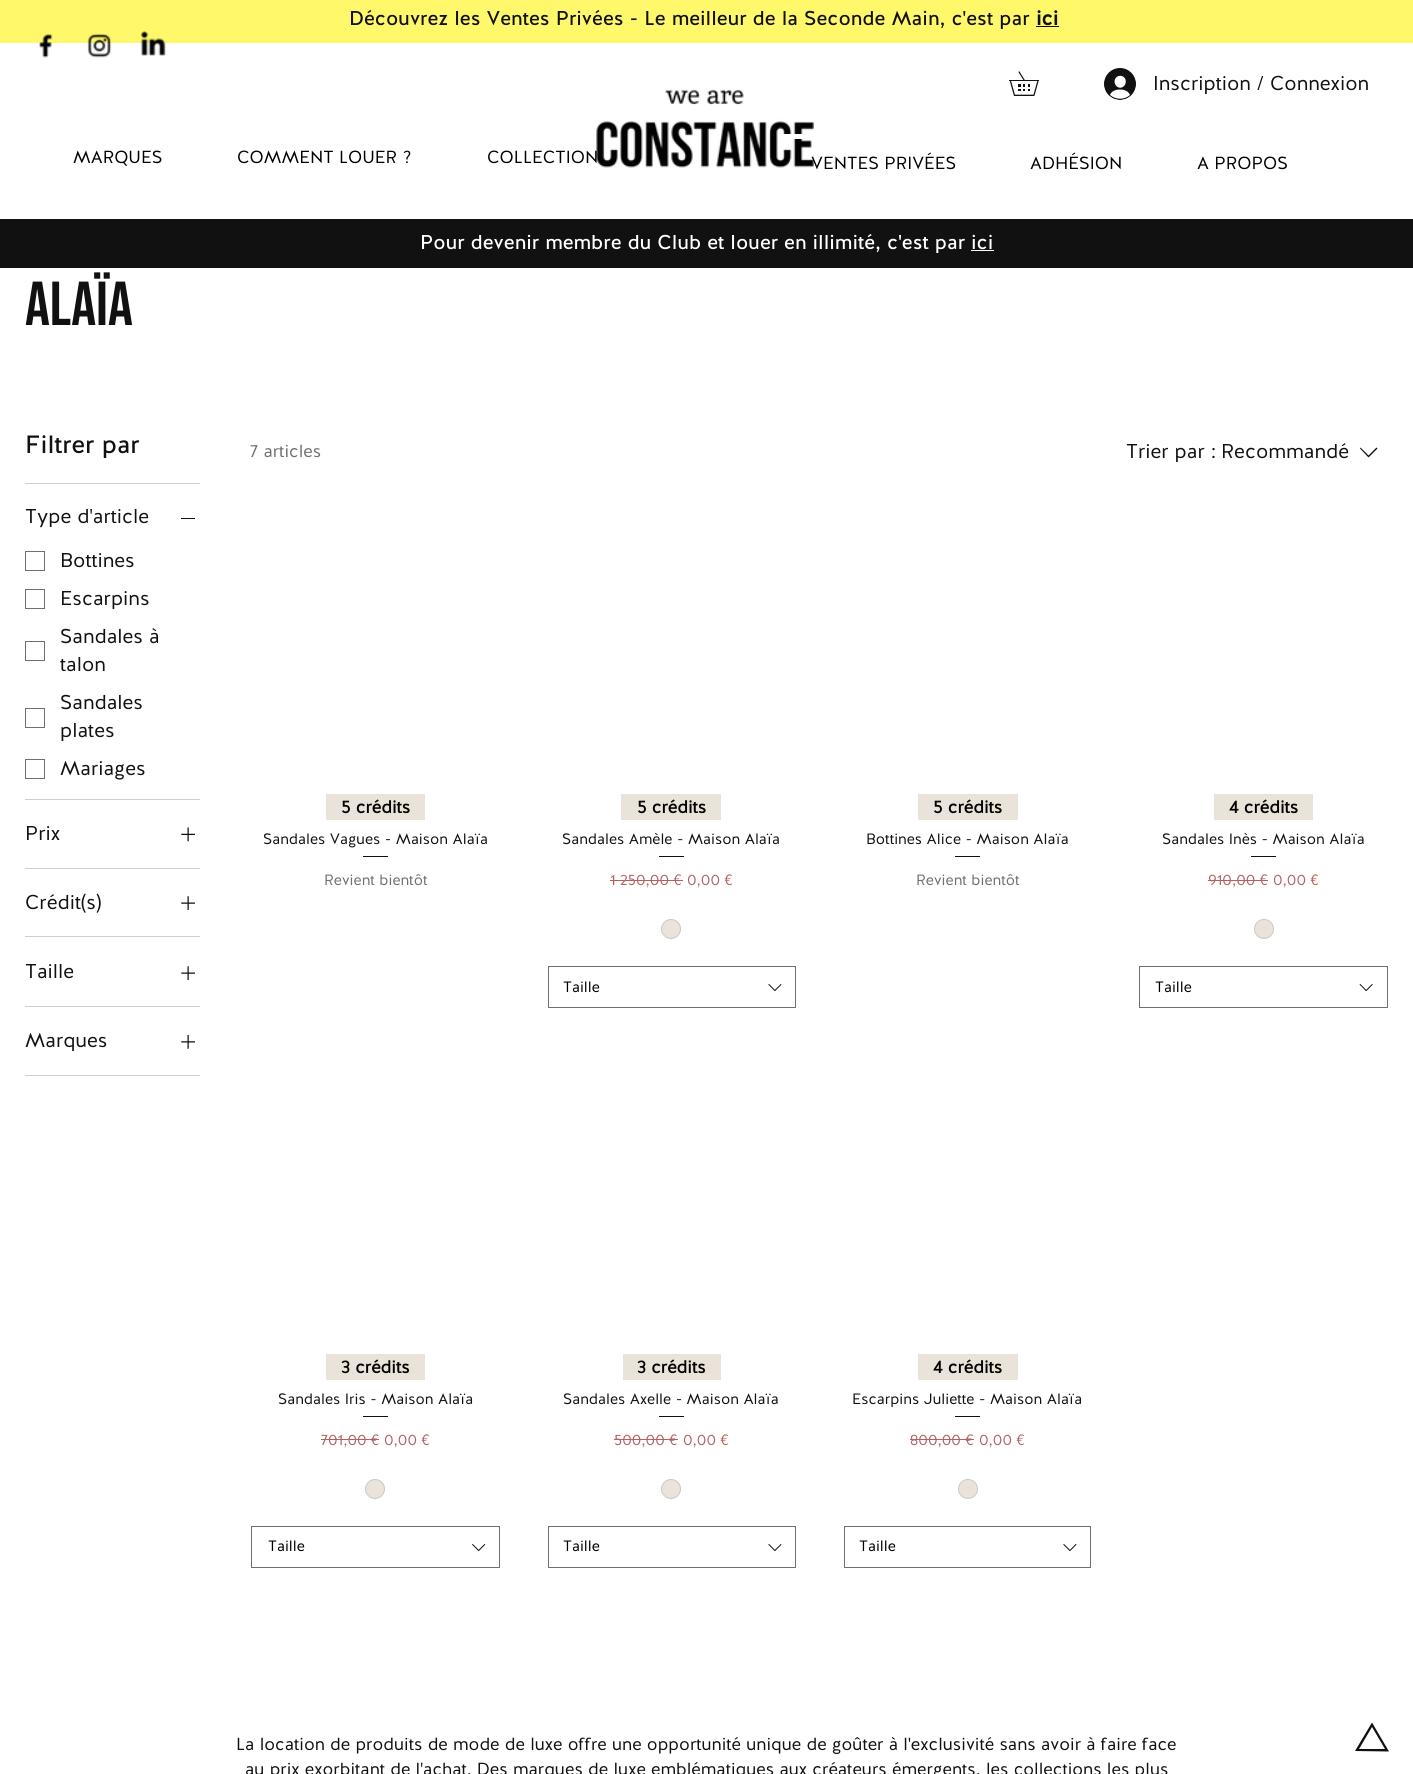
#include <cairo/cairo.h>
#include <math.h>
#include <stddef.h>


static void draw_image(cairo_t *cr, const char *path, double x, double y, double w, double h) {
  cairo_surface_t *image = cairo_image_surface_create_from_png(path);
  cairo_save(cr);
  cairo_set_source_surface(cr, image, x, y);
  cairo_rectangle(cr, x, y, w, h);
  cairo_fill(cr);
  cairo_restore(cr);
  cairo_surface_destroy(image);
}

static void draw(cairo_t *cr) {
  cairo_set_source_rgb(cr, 1, 1, 1);
  cairo_paint(cr);
  cairo_set_source_rgb(cr, 1, 248 / 255.0, 107 / 255.0);
  cairo_rectangle(cr, 0, 0, 1413, 43);
  cairo_fill(cr);
  cairo_set_source_rgb(cr, 17 / 255.0, 17 / 255.0, 17 / 255.0);
  cairo_rectangle(cr, 1036, 26, 23, 1);
  cairo_fill(cr);
  draw_image(cr, "images/2.png", 1009, 71, 30, 25);
  draw_image(cr, "images/3.png", 1104, 68, 32, 32);
  draw_image(cr, "images/4.png", 39, 33, 14, 25);
  draw_image(cr, "images/5.png", 87, 33, 25, 25);
  draw_image(cr, "images/6.png", 140, 31, 26, 25);
  cairo_rectangle(cr, 0, 219, 1413, 49);
  cairo_fill(cr);
  cairo_set_source_rgb(cr, 1, 1, 1);
  cairo_rectangle(cr, 971, 250, 23, 1);
  cairo_fill(cr);
  cairo_set_source_rgb(cr, 207 / 255.0, 207 / 255.0, 207 / 255.0);
  cairo_rectangle(cr, 25, 483, 175, 1);
  cairo_fill(cr);
  cairo_rectangle(cr, 25, 799, 175, 1);
  cairo_fill(cr);
  cairo_set_source_rgb(cr, 17 / 255.0, 17 / 255.0, 17 / 255.0);
  cairo_rectangle(cr, 181, 518, 14, 1);
  cairo_fill(cr);
  cairo_rectangle(cr, 25.5, 551.5, 19, 19);
  cairo_set_source_rgb(cr, 112 / 255.0, 112 / 255.0, 112 / 255.0);
  cairo_set_line_width(cr, 1);
  cairo_stroke(cr);
  cairo_rectangle(cr, 25.5, 589.5, 19, 19);
  cairo_stroke(cr);
  cairo_rectangle(cr, 25.5, 641.5, 19, 19);
  cairo_stroke(cr);
  cairo_rectangle(cr, 25.5, 708.5, 19, 19);
  cairo_stroke(cr);
  cairo_rectangle(cr, 25.5, 759.5, 19, 19);
  cairo_stroke(cr);
  cairo_set_source_rgb(cr, 207 / 255.0, 207 / 255.0, 207 / 255.0);
  cairo_rectangle(cr, 25, 868, 175, 1);
  cairo_fill(cr);
  draw_image(cr, "images/7.png", 181, 827, 14, 15);
  cairo_rectangle(cr, 25, 936, 175, 1);
  cairo_fill(cr);
  draw_image(cr, "images/8.png", 181, 896, 14, 14);
  cairo_rectangle(cr, 25, 1006, 175, 1);
  cairo_fill(cr);
  draw_image(cr, "images/8.png", 181, 966, 14, 14);
  cairo_rectangle(cr, 25, 1075, 175, 1);
  cairo_fill(cr);
  draw_image(cr, "images/9.png", 181, 1035, 14, 14);
  cairo_set_source_rgb(cr, 17 / 255.0, 17 / 255.0, 17 / 255.0);
  cairo_set_fill_rule(cr, CAIRO_FILL_RULE_EVEN_ODD);
  cairo_new_path(cr);
  cairo_move_to(cr, 1376.5, 447.5);
  cairo_line_to(cr, 1377.5, 448.5);
  cairo_line_to(cr, 1368.5, 457.5);
  cairo_line_to(cr, 1360, 448.5);
  cairo_line_to(cr, 1360.5, 447.5);
  cairo_line_to(cr, 1368.5, 455.5);
  cairo_close_path(cr);
  cairo_fill(cr);
  cairo_set_source_rgb(cr, 234 / 255.0, 227 / 255.0, 217 / 255.0);
  cairo_rectangle(cr, 326, 794, 99, 26);
  cairo_fill(cr);
  cairo_set_source_rgb(cr, 17 / 255.0, 17 / 255.0, 17 / 255.0);
  cairo_rectangle(cr, 363, 856, 25, 1);
  cairo_fill(cr);
  cairo_set_source_rgb(cr, 234 / 255.0, 227 / 255.0, 217 / 255.0);
  cairo_rectangle(cr, 621, 794, 100, 26);
  cairo_fill(cr);
  cairo_set_source_rgb(cr, 17 / 255.0, 17 / 255.0, 17 / 255.0);
  cairo_rectangle(cr, 659, 856, 25, 1);
  cairo_fill(cr);
  cairo_set_source_rgb(cr, 179 / 255.0, 96 / 255.0, 97 / 255.0);
  cairo_rectangle(cr, 610, 880, 73, 1);
  cairo_fill(cr);
  cairo_set_source_rgb(cr, 234 / 255.0, 227 / 255.0, 217 / 255.0);
  cairo_arc(cr, 671, 929, 9.5, 0, 2 * M_PI);
  cairo_fill_preserve(cr);
  cairo_set_source_rgb(cr, 201 / 255.0, 201 / 255.0, 201 / 255.0);
  cairo_stroke(cr);
  cairo_rectangle(cr, 548.5, 966.5, 247, 41);
  cairo_set_source_rgb(cr, 112 / 255.0, 112 / 255.0, 112 / 255.0);
  cairo_stroke(cr);
  draw_image(cr, "images/10.png", 768, 984, 14, 8);
  cairo_set_source_rgb(cr, 234 / 255.0, 227 / 255.0, 217 / 255.0);
  cairo_rectangle(cr, 918, 794, 100, 26);
  cairo_fill(cr);
  cairo_set_source_rgb(cr, 17 / 255.0, 17 / 255.0, 17 / 255.0);
  cairo_rectangle(cr, 955, 856, 25, 1);
  cairo_fill(cr);
  cairo_set_source_rgb(cr, 234 / 255.0, 227 / 255.0, 217 / 255.0);
  cairo_rectangle(cr, 1214, 794, 99, 26);
  cairo_fill(cr);
  cairo_set_source_rgb(cr, 17 / 255.0, 17 / 255.0, 17 / 255.0);
  cairo_rectangle(cr, 1251, 856, 25, 1);
  cairo_fill(cr);
  cairo_set_source_rgb(cr, 179 / 255.0, 96 / 255.0, 97 / 255.0);
  cairo_rectangle(cr, 1208, 880, 60, 1);
  cairo_fill(cr);
  cairo_set_source_rgb(cr, 234 / 255.0, 227 / 255.0, 217 / 255.0);
  cairo_arc(cr, 1264, 929, 9.5, 0, 2 * M_PI);
  cairo_fill_preserve(cr);
  cairo_set_source_rgb(cr, 201 / 255.0, 201 / 255.0, 201 / 255.0);
  cairo_stroke(cr);
  cairo_rectangle(cr, 1139.5, 966.5, 248, 41);
  cairo_set_source_rgb(cr, 112 / 255.0, 112 / 255.0, 112 / 255.0);
  cairo_stroke(cr);
  draw_image(cr, "images/11.png", 1359, 984, 14, 8);
  cairo_set_source_rgb(cr, 234 / 255.0, 227 / 255.0, 217 / 255.0);
  cairo_rectangle(cr, 326, 1354, 99, 26);
  cairo_fill(cr);
  cairo_set_source_rgb(cr, 17 / 255.0, 17 / 255.0, 17 / 255.0);
  cairo_rectangle(cr, 363, 1416, 25, 1);
  cairo_fill(cr);
  cairo_set_source_rgb(cr, 179 / 255.0, 96 / 255.0, 97 / 255.0);
  cairo_rectangle(cr, 321, 1439, 58, 1);
  cairo_fill(cr);
  cairo_set_source_rgb(cr, 234 / 255.0, 227 / 255.0, 217 / 255.0);
  cairo_arc(cr, 375, 1489, 9.5, 0, 2 * M_PI);
  cairo_fill_preserve(cr);
  cairo_set_source_rgb(cr, 201 / 255.0, 201 / 255.0, 201 / 255.0);
  cairo_stroke(cr);
  cairo_rectangle(cr, 251.5, 1526.5, 248, 41);
  cairo_set_source_rgb(cr, 112 / 255.0, 112 / 255.0, 112 / 255.0);
  cairo_stroke(cr);
  draw_image(cr, "images/12.png", 472, 1544, 14, 8);
  cairo_set_source_rgb(cr, 234 / 255.0, 227 / 255.0, 217 / 255.0);
  cairo_rectangle(cr, 623, 1354, 98, 26);
  cairo_fill(cr);
  cairo_set_source_rgb(cr, 17 / 255.0, 17 / 255.0, 17 / 255.0);
  cairo_rectangle(cr, 659, 1416, 25, 1);
  cairo_fill(cr);
  cairo_set_source_rgb(cr, 179 / 255.0, 96 / 255.0, 97 / 255.0);
  cairo_rectangle(cr, 614, 1439, 64, 1);
  cairo_fill(cr);
  cairo_set_source_rgb(cr, 234 / 255.0, 227 / 255.0, 217 / 255.0);
  cairo_arc(cr, 671, 1489, 9.5, 0, 2 * M_PI);
  cairo_fill_preserve(cr);
  cairo_set_source_rgb(cr, 201 / 255.0, 201 / 255.0, 201 / 255.0);
  cairo_stroke(cr);
  cairo_rectangle(cr, 548.5, 1526.5, 247, 41);
  cairo_set_source_rgb(cr, 112 / 255.0, 112 / 255.0, 112 / 255.0);
  cairo_stroke(cr);
  draw_image(cr, "images/10.png", 768, 1544, 14, 8);
  cairo_set_source_rgb(cr, 234 / 255.0, 227 / 255.0, 217 / 255.0);
  cairo_rectangle(cr, 918, 1354, 100, 26);
  cairo_fill(cr);
  cairo_set_source_rgb(cr, 17 / 255.0, 17 / 255.0, 17 / 255.0);
  cairo_rectangle(cr, 955, 1416, 25, 1);
  cairo_fill(cr);
  cairo_set_source_rgb(cr, 179 / 255.0, 96 / 255.0, 97 / 255.0);
  cairo_rectangle(cr, 910, 1439, 64, 1);
  cairo_fill(cr);
  cairo_set_source_rgb(cr, 234 / 255.0, 227 / 255.0, 217 / 255.0);
  cairo_arc(cr, 968, 1489, 9.5, 0, 2 * M_PI);
  cairo_fill_preserve(cr);
  cairo_set_source_rgb(cr, 201 / 255.0, 201 / 255.0, 201 / 255.0);
  cairo_stroke(cr);
  cairo_rectangle(cr, 844.5, 1526.5, 246, 41);
  cairo_set_source_rgb(cr, 112 / 255.0, 112 / 255.0, 112 / 255.0);
  cairo_stroke(cr);
  draw_image(cr, "images/10.png", 1063, 1544, 14, 8);
  cairo_set_source_rgb(cr, 17 / 255.0, 17 / 255.0, 17 / 255.0);
  cairo_set_fill_rule(cr, CAIRO_FILL_RULE_WINDING);
  cairo_new_path(cr);
  cairo_move_to(cr, 1355, 1751);
  cairo_line_to(cr, 1372, 1722.5);
  cairo_line_to(cr, 1389, 1751.5);
  cairo_close_path(cr);
  cairo_move_to(cr, 1385, 1749);
  cairo_line_to(cr, 1372, 1727);
  cairo_line_to(cr, 1359, 1749);
  cairo_close_path(cr);
  cairo_fill(cr);
  cairo_select_font_face(cr, "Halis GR", CAIRO_FONT_SLANT_NORMAL, CAIRO_FONT_WEIGHT_NORMAL);
  cairo_set_font_size(cr, 20);
  cairo_move_to(cr, 349, 25);
  cairo_show_text(cr, "Découvrez les Ventes Privées - Le meilleur de la Seconde Main, c'est par");
  cairo_select_font_face(cr, "Halis GR", CAIRO_FONT_SLANT_NORMAL, CAIRO_FONT_WEIGHT_BOLD);
  cairo_move_to(cr, 1036, 25);
  cairo_show_text(cr, "ici");
  cairo_select_font_face(cr, "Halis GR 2", CAIRO_FONT_SLANT_NORMAL, CAIRO_FONT_WEIGHT_NORMAL);
  cairo_set_font_size(cr, 17.5);
  cairo_set_source_rgb(cr, 0, 0, 0);
  cairo_move_to(cr, 73, 163);
  cairo_show_text(cr, "MARQUES");
  cairo_move_to(cr, 237, 163);
  cairo_show_text(cr, "COMMENT LOUER ?");
  cairo_move_to(cr, 487, 163);
  cairo_show_text(cr, "COLLECTION");
  draw_image(cr, "images/1.png", 596, 89, 218, 79);
  cairo_set_font_size(cr, 20);
  cairo_set_source_rgb(cr, 17 / 255.0, 17 / 255.0, 17 / 255.0);
  cairo_move_to(cr, 1153, 90);
  cairo_show_text(cr, "Inscription / Connexion");
  cairo_set_source_rgb(cr, 1, 1, 1);
  cairo_rectangle(cr, 780, 134, 25, 5);
  cairo_fill(cr);
  cairo_set_font_size(cr, 17.5);
  cairo_set_source_rgb(cr, 0, 0, 0);
  cairo_move_to(cr, 811, 169);
  cairo_show_text(cr, "VENTES PRIVÉES");
  cairo_move_to(cr, 1030, 169);
  cairo_show_text(cr, "ADHÉSION");
  cairo_move_to(cr, 1197, 169);
  cairo_show_text(cr, "A PROPOS");
  cairo_select_font_face(cr, "Halis GR", CAIRO_FONT_SLANT_NORMAL, CAIRO_FONT_WEIGHT_NORMAL);
  cairo_set_font_size(cr, 20);
  cairo_set_source_rgb(cr, 1, 1, 1);
  cairo_move_to(cr, 420, 249);
  cairo_show_text(cr, "Pour devenir membre du Club et louer en illimité, c'est par ici");
  cairo_select_font_face(cr, "Bebas Neue", CAIRO_FONT_SLANT_NORMAL, CAIRO_FONT_WEIGHT_NORMAL);
  cairo_set_font_size(cr, 62);
  cairo_set_source_rgb(cr, 17 / 255.0, 17 / 255.0, 17 / 255.0);
  cairo_move_to(cr, 25, 325);
  cairo_show_text(cr, "Alaïa");
  cairo_select_font_face(cr, "Halis GR", CAIRO_FONT_SLANT_NORMAL, CAIRO_FONT_WEIGHT_NORMAL);
  cairo_set_font_size(cr, 25);
  cairo_move_to(cr, 25, 453);
  cairo_show_text(cr, "Filtrer par");
  cairo_select_font_face(cr, "Halis GR 2", CAIRO_FONT_SLANT_NORMAL, CAIRO_FONT_WEIGHT_NORMAL);
  cairo_set_font_size(cr, 20);
  cairo_move_to(cr, 25, 523);
  cairo_show_text(cr, "Type d'article");
  cairo_move_to(cr, 60, 567);
  cairo_show_text(cr, "Bottines");
  cairo_move_to(cr, 60, 605);
  cairo_show_text(cr, "Escarpins");
  cairo_move_to(cr, 60, 643);
  cairo_show_text(cr, "Sandales à");
  cairo_move_to(cr, 60, 671);
  cairo_show_text(cr, "talon");
  cairo_move_to(cr, 60, 709);
  cairo_show_text(cr, "Sandales");
  cairo_move_to(cr, 60, 737);
  cairo_show_text(cr, "plates");
  cairo_move_to(cr, 60, 775);
  cairo_show_text(cr, "Mariages");
  cairo_move_to(cr, 25, 840);
  cairo_show_text(cr, "Prix");
  cairo_move_to(cr, 25, 909);
  cairo_show_text(cr, "Crédit(s)");
  cairo_move_to(cr, 25, 978);
  cairo_show_text(cr, "Taille");
  cairo_move_to(cr, 25, 1047);
  cairo_show_text(cr, "Marques");
  cairo_set_font_size(cr, 17.5);
  cairo_set_source_rgb(cr, 112 / 255.0, 112 / 255.0, 110 / 255.0);
  cairo_move_to(cr, 250, 457);
  cairo_show_text(cr, "7 articles");
  cairo_set_font_size(cr, 20);
  cairo_set_source_rgb(cr, 17 / 255.0, 17 / 255.0, 17 / 255.0);
  cairo_move_to(cr, 1126, 458);
  cairo_show_text(cr, "Trier par :");
  cairo_move_to(cr, 1221, 458);
  cairo_show_text(cr, "Recommandé");
  cairo_select_font_face(cr, "Halis GR 2", CAIRO_FONT_SLANT_NORMAL, CAIRO_FONT_WEIGHT_BOLD);
  cairo_set_font_size(cr, 17.5);
  cairo_set_source_rgb(cr, 0, 0, 0);
  cairo_move_to(cr, 341, 813);
  cairo_show_text(cr, "5 crédits");
  cairo_select_font_face(cr, "Halis GR 2", CAIRO_FONT_SLANT_NORMAL, CAIRO_FONT_WEIGHT_NORMAL);
  cairo_set_font_size(cr, 15);
  cairo_set_source_rgb(cr, 17 / 255.0, 17 / 255.0, 17 / 255.0);
  cairo_move_to(cr, 263, 844);
  cairo_show_text(cr, "Sandales Vagues - Maison Alaïa");
  cairo_set_source_rgb(cr, 112 / 255.0, 112 / 255.0, 110 / 255.0);
  cairo_move_to(cr, 324, 885);
  cairo_show_text(cr, "Revient bientôt");
  cairo_select_font_face(cr, "Halis GR 2", CAIRO_FONT_SLANT_NORMAL, CAIRO_FONT_WEIGHT_BOLD);
  cairo_set_font_size(cr, 17.5);
  cairo_set_source_rgb(cr, 0, 0, 0);
  cairo_move_to(cr, 637, 813);
  cairo_show_text(cr, "5 crédits");
  cairo_select_font_face(cr, "Halis GR 2", CAIRO_FONT_SLANT_NORMAL, CAIRO_FONT_WEIGHT_NORMAL);
  cairo_set_font_size(cr, 15);
  cairo_set_source_rgb(cr, 17 / 255.0, 17 / 255.0, 17 / 255.0);
  cairo_move_to(cr, 562, 844);
  cairo_show_text(cr, "Sandales Amèle - Maison Alaïa");
  cairo_set_source_rgb(cr, 179 / 255.0, 96 / 255.0, 97 / 255.0);
  cairo_move_to(cr, 610, 885);
  cairo_show_text(cr, "1 250,00 €");
  cairo_move_to(cr, 687, 885);
  cairo_show_text(cr, "0,00 €");
  cairo_set_source_rgb(cr, 0, 0, 0);
  cairo_move_to(cr, 563, 992);
  cairo_show_text(cr, "Taille");
  cairo_select_font_face(cr, "Halis GR 2", CAIRO_FONT_SLANT_NORMAL, CAIRO_FONT_WEIGHT_BOLD);
  cairo_set_font_size(cr, 17.5);
  cairo_move_to(cr, 933, 813);
  cairo_show_text(cr, "5 crédits");
  cairo_select_font_face(cr, "Halis GR 2", CAIRO_FONT_SLANT_NORMAL, CAIRO_FONT_WEIGHT_NORMAL);
  cairo_set_font_size(cr, 15);
  cairo_set_source_rgb(cr, 17 / 255.0, 17 / 255.0, 17 / 255.0);
  cairo_move_to(cr, 866, 844);
  cairo_show_text(cr, "Bottines Alice - Maison Alaïa");
  cairo_set_source_rgb(cr, 112 / 255.0, 112 / 255.0, 110 / 255.0);
  cairo_move_to(cr, 916, 885);
  cairo_show_text(cr, "Revient bientôt");
  cairo_select_font_face(cr, "Halis GR 2", CAIRO_FONT_SLANT_NORMAL, CAIRO_FONT_WEIGHT_BOLD);
  cairo_set_font_size(cr, 17.5);
  cairo_set_source_rgb(cr, 0, 0, 0);
  cairo_move_to(cr, 1229, 813);
  cairo_show_text(cr, "4 crédits");
  cairo_select_font_face(cr, "Halis GR 2", CAIRO_FONT_SLANT_NORMAL, CAIRO_FONT_WEIGHT_NORMAL);
  cairo_set_font_size(cr, 15);
  cairo_set_source_rgb(cr, 17 / 255.0, 17 / 255.0, 17 / 255.0);
  cairo_move_to(cr, 1162, 844);
  cairo_show_text(cr, "Sandales Inès - Maison Alaïa");
  cairo_set_source_rgb(cr, 179 / 255.0, 96 / 255.0, 97 / 255.0);
  cairo_move_to(cr, 1208, 885);
  cairo_show_text(cr, "910,00 €");
  cairo_move_to(cr, 1273, 885);
  cairo_show_text(cr, "0,00 €");
  cairo_set_source_rgb(cr, 0, 0, 0);
  cairo_move_to(cr, 1155, 992);
  cairo_show_text(cr, "Taille");
  cairo_select_font_face(cr, "Halis GR 2", CAIRO_FONT_SLANT_NORMAL, CAIRO_FONT_WEIGHT_BOLD);
  cairo_set_font_size(cr, 17.5);
  cairo_move_to(cr, 341, 1373);
  cairo_show_text(cr, "3 crédits");
  cairo_select_font_face(cr, "Halis GR 2", CAIRO_FONT_SLANT_NORMAL, CAIRO_FONT_WEIGHT_NORMAL);
  cairo_set_font_size(cr, 15);
  cairo_set_source_rgb(cr, 17 / 255.0, 17 / 255.0, 17 / 255.0);
  cairo_move_to(cr, 278, 1404);
  cairo_show_text(cr, "Sandales Iris - Maison Alaïa");
  cairo_set_source_rgb(cr, 179 / 255.0, 96 / 255.0, 97 / 255.0);
  cairo_move_to(cr, 321, 1445);
  cairo_show_text(cr, "701,00 €");
  cairo_move_to(cr, 384, 1445);
  cairo_show_text(cr, "0,00 €");
  cairo_set_source_rgb(cr, 0, 0, 0);
  cairo_move_to(cr, 268, 1551);
  cairo_show_text(cr, "Taille");
  cairo_select_font_face(cr, "Halis GR 2", CAIRO_FONT_SLANT_NORMAL, CAIRO_FONT_WEIGHT_BOLD);
  cairo_set_font_size(cr, 17.5);
  cairo_move_to(cr, 637, 1373);
  cairo_show_text(cr, "3 crédits");
  cairo_select_font_face(cr, "Halis GR 2", CAIRO_FONT_SLANT_NORMAL, CAIRO_FONT_WEIGHT_NORMAL);
  cairo_set_font_size(cr, 15);
  cairo_set_source_rgb(cr, 17 / 255.0, 17 / 255.0, 17 / 255.0);
  cairo_move_to(cr, 563, 1404);
  cairo_show_text(cr, "Sandales Axelle - Maison Alaïa");
  cairo_set_source_rgb(cr, 179 / 255.0, 96 / 255.0, 97 / 255.0);
  cairo_move_to(cr, 614, 1445);
  cairo_show_text(cr, "500,00 €");
  cairo_move_to(cr, 683, 1445);
  cairo_show_text(cr, "0,00 €");
  cairo_set_source_rgb(cr, 0, 0, 0);
  cairo_move_to(cr, 563, 1551);
  cairo_show_text(cr, "Taille");
  cairo_select_font_face(cr, "Halis GR 2", CAIRO_FONT_SLANT_NORMAL, CAIRO_FONT_WEIGHT_BOLD);
  cairo_set_font_size(cr, 17.5);
  cairo_move_to(cr, 933, 1373);
  cairo_show_text(cr, "4 crédits");
  cairo_select_font_face(cr, "Halis GR 2", CAIRO_FONT_SLANT_NORMAL, CAIRO_FONT_WEIGHT_NORMAL);
  cairo_set_font_size(cr, 15);
  cairo_set_source_rgb(cr, 17 / 255.0, 17 / 255.0, 17 / 255.0);
  cairo_move_to(cr, 852, 1404);
  cairo_show_text(cr, "Escarpins Juliette - Maison Alaïa");
  cairo_set_source_rgb(cr, 179 / 255.0, 96 / 255.0, 97 / 255.0);
  cairo_move_to(cr, 910, 1445);
  cairo_show_text(cr, "800,00 €");
  cairo_move_to(cr, 979, 1445);
  cairo_show_text(cr, "0,00 €");
  cairo_set_source_rgb(cr, 0, 0, 0);
  cairo_move_to(cr, 859, 1551);
  cairo_show_text(cr, "Taille");
  cairo_set_font_size(cr, 17.5);
  cairo_set_source_rgb(cr, 17 / 255.0, 17 / 255.0, 17 / 255.0);
  cairo_move_to(cr, 236, 1750);
  cairo_show_text(cr, "La location de produits de mode de luxe offre une opportunité unique de goûter à l'exclusivité sans avoir à faire face");
  cairo_move_to(cr, 245, 1775);
  cairo_show_text(cr, "au prix exorbitant de l'achat. Des marques de luxe emblématiques aux créateurs émergents, les collections les plus");
}

int main(void) {
  cairo_surface_t *surface = cairo_image_surface_create(CAIRO_FORMAT_RGB24, 1413, 1774);
  cairo_t *cr = cairo_create(surface);
  cairo_font_options_t *options = cairo_font_options_create();
  cairo_font_options_set_hint_metrics(options, CAIRO_HINT_METRICS_OFF);
  cairo_font_options_set_hint_style(options, CAIRO_HINT_STYLE_NONE);
  cairo_set_font_options(cr, options);
  cairo_set_miter_limit(cr, 4);
  draw(cr);
  cairo_surface_write_to_png(surface, "out.png");
  cairo_font_options_destroy(options);
  cairo_destroy(cr);
  cairo_surface_destroy(surface);
  return 0;
}
